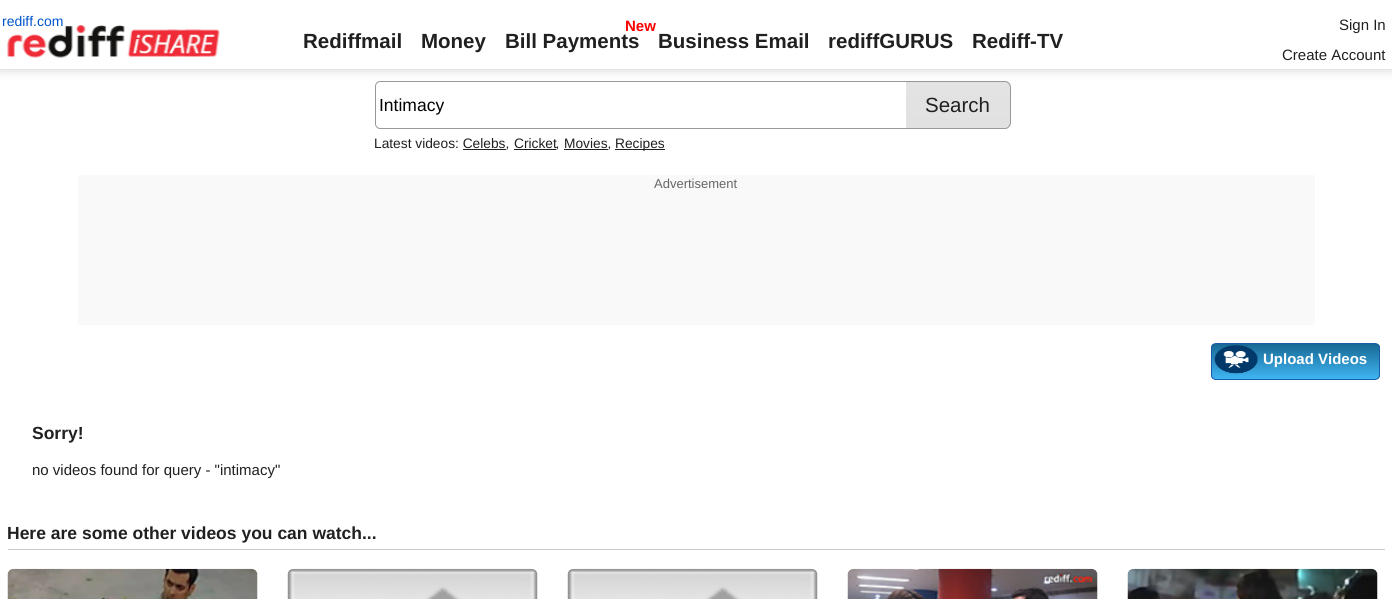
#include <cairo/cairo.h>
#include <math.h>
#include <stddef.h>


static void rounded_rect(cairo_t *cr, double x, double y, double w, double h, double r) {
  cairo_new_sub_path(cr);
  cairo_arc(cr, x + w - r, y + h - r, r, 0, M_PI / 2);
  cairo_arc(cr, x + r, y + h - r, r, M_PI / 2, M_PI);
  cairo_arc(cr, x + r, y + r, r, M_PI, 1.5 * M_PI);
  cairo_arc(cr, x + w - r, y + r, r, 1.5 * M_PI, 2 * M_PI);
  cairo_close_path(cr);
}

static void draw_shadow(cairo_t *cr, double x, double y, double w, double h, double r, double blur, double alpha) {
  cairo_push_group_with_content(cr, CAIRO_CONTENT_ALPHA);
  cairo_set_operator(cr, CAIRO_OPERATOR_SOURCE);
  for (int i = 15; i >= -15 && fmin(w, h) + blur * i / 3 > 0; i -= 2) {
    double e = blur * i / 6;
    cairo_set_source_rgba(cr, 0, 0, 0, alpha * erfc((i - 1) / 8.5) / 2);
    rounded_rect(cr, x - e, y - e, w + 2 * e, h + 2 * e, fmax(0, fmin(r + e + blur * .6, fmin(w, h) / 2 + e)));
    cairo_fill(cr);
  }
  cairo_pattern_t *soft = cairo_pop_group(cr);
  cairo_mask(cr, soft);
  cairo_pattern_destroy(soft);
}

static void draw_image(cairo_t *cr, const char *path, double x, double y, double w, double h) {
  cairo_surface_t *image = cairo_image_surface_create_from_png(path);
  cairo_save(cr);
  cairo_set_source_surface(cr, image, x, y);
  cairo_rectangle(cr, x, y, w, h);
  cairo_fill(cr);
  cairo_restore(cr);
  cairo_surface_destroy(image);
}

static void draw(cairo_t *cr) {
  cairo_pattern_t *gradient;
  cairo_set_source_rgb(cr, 1, 1, 1);
  cairo_paint(cr);
  cairo_set_source_rgb(cr, 153 / 255.0, 153 / 255.0, 153 / 255.0);
  cairo_set_fill_rule(cr, CAIRO_FILL_RULE_EVEN_ODD);
  cairo_new_path(cr);
  cairo_move_to(cr, 380, 81);
  cairo_line_to(cr, 908, 81);
  cairo_line_to(cr, 908, 129);
  cairo_line_to(cr, 380, 129);
  cairo_curve_to(cr, 377, 129, 375, 126, 375, 124);
  cairo_line_to(cr, 375, 86);
  cairo_curve_to(cr, 375, 84, 377, 81, 380, 81);
  cairo_close_path(cr);
  cairo_move_to(cr, 380, 82);
  cairo_line_to(cr, 908, 82);
  cairo_line_to(cr, 908, 128);
  cairo_line_to(cr, 380, 128);
  cairo_curve_to(cr, 378, 128, 376, 126, 376, 124);
  cairo_line_to(cr, 376, 86);
  cairo_curve_to(cr, 376, 84, 378, 82, 380, 82);
  cairo_close_path(cr);
  cairo_fill(cr);
  cairo_save(cr);
  cairo_set_fill_rule(cr, CAIRO_FILL_RULE_WINDING);
  cairo_new_path(cr);
  cairo_move_to(cr, 906, 81);
  cairo_line_to(cr, 1005, 81);
  cairo_curve_to(cr, 1008.5, 81, 1011, 83.5, 1011, 87);
  cairo_line_to(cr, 1011, 123);
  cairo_curve_to(cr, 1011, 126.5, 1008.5, 129, 1005, 129);
  cairo_line_to(cr, 906, 129);
  cairo_close_path(cr);
  cairo_clip(cr);
  gradient = cairo_pattern_create_linear(958, 37, 958, 83);
  cairo_pattern_add_color_stop_rgba(gradient, 0.05, 227 / 255.0, 227 / 255.0, 227 / 255.0, 1);
  cairo_pattern_add_color_stop_rgba(gradient, 1, 225 / 255.0, 225 / 255.0, 225 / 255.0, 1);
  cairo_set_source(cr, gradient);
  cairo_pattern_destroy(gradient);
  cairo_rectangle(cr, 906, 81, 105, 2);
  cairo_fill(cr);
  gradient = cairo_pattern_create_linear(958, 83, 958, 128);
  cairo_pattern_add_color_stop_rgba(gradient, 0.05, 227 / 255.0, 227 / 255.0, 227 / 255.0, 1);
  cairo_pattern_add_color_stop_rgba(gradient, 1, 225 / 255.0, 225 / 255.0, 225 / 255.0, 1);
  cairo_set_source(cr, gradient);
  cairo_pattern_destroy(gradient);
  cairo_rectangle(cr, 906, 83, 105, 45);
  cairo_fill(cr);
  gradient = cairo_pattern_create_linear(958, 128, 958, 173);
  cairo_pattern_add_color_stop_rgba(gradient, 0.05, 227 / 255.0, 227 / 255.0, 227 / 255.0, 1);
  cairo_pattern_add_color_stop_rgba(gradient, 1, 225 / 255.0, 225 / 255.0, 225 / 255.0, 1);
  cairo_set_source(cr, gradient);
  cairo_pattern_destroy(gradient);
  cairo_rectangle(cr, 1005, 128, 6, 1);
  cairo_fill(cr);
  cairo_restore(cr);
  cairo_new_path(cr);
  cairo_move_to(cr, 906, 81);
  cairo_line_to(cr, 1005, 81);
  cairo_curve_to(cr, 1008, 81, 1011, 84, 1011, 88);
  cairo_line_to(cr, 1011, 122);
  cairo_curve_to(cr, 1011, 126, 1008, 129, 1005, 129);
  cairo_line_to(cr, 906, 129);
  cairo_close_path(cr);
  cairo_move_to(cr, 906, 82);
  cairo_line_to(cr, 1005, 82);
  cairo_curve_to(cr, 1008, 82, 1010, 85, 1010, 88);
  cairo_line_to(cr, 1010, 122);
  cairo_curve_to(cr, 1010, 125, 1008, 128, 1005, 128);
  cairo_line_to(cr, 906, 128);
  cairo_close_path(cr);
  cairo_fill(cr);
  cairo_set_source_rgb(cr, 0, 0, 0);
  draw_shadow(cr, 0, 0, 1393, 69, 0, 6, 0.2);
  cairo_set_source_rgb(cr, 1, 1, 1);
  cairo_rectangle(cr, 0, 0, 1392, 69);
  cairo_fill(cr);
  draw_image(cr, "images/1.png", 7, 25, 213, 33);
  cairo_set_source_rgb(cr, 32 / 255.0, 32 / 255.0, 32 / 255.0);
  cairo_rectangle(cr, 514, 149, 42, 1);
  cairo_fill(cr);
  cairo_rectangle(cr, 564, 149, 44, 1);
  cairo_fill(cr);
  cairo_rectangle(cr, 615, 149, 50, 1);
  cairo_fill(cr);
  cairo_rectangle(cr, 463, 149, 43, 1);
  cairo_fill(cr);
  cairo_set_source_rgb(cr, 249 / 255.0, 249 / 255.0, 249 / 255.0);
  cairo_rectangle(cr, 78, 175, 1237, 150);
  cairo_fill(cr);
  cairo_save(cr);
  cairo_set_fill_rule(cr, CAIRO_FILL_RULE_WINDING);
  rounded_rect(cr, 1211, 343, 169, 37, 5);
  cairo_clip(cr);
  gradient = cairo_pattern_create_linear(1296, 344, 1296, 379);
  cairo_pattern_add_color_stop_rgba(gradient, 0, 23 / 255.0, 105 / 255.0, 148 / 255.0, 1);
  cairo_pattern_add_color_stop_rgba(gradient, 1, 63 / 255.0, 181 / 255.0, 242 / 255.0, 1);
  cairo_set_source(cr, gradient);
  cairo_pattern_destroy(gradient);
  cairo_rectangle(cr, 1211, 344, 169, 35);
  cairo_fill(cr);
  cairo_restore(cr);
  rounded_rect(cr, 1211.5, 343.5, 168, 36, 4.5);
  cairo_set_source_rgb(cr, 24 / 255.0, 92 / 255.0, 168 / 255.0);
  cairo_set_line_width(cr, 1);
  cairo_stroke(cr);
  draw_image(cr, "images/2.png", 1214, 345, 44, 29);
  cairo_set_source_rgb(cr, 204 / 255.0, 204 / 255.0, 204 / 255.0);
  cairo_rectangle(cr, 8, 549, 1377, 1);
  cairo_fill(cr);
  draw_image(cr, "images/3.png", 7, 568, 251, 31);
  draw_image(cr, "images/4.png", 287, 568, 251, 31);
  draw_image(cr, "images/5.png", 567, 568, 251, 31);
  draw_image(cr, "images/6.png", 847, 568, 251, 31);
  draw_image(cr, "images/7.png", 1127, 568, 251, 31);
  cairo_select_font_face(cr, "Liberation Sans", CAIRO_FONT_SLANT_NORMAL, CAIRO_FONT_WEIGHT_NORMAL);
  cairo_set_font_size(cr, 14);
  cairo_set_source_rgb(cr, 0, 85 / 255.0, 204 / 255.0);
  cairo_move_to(cr, 2, 26);
  cairo_show_text(cr, "rediff.com");
  cairo_select_font_face(cr, "Liberation Sans", CAIRO_FONT_SLANT_NORMAL, CAIRO_FONT_WEIGHT_BOLD);
  cairo_set_font_size(cr, 20.5);
  cairo_set_source_rgb(cr, 32 / 255.0, 32 / 255.0, 32 / 255.0);
  cairo_move_to(cr, 303, 48);
  cairo_show_text(cr, "Rediffmail");
  cairo_move_to(cr, 421, 48);
  cairo_show_text(cr, "Money");
  cairo_set_font_size(cr, 15);
  cairo_set_source_rgb(cr, 1, 0, 0);
  cairo_move_to(cr, 625, 31);
  cairo_show_text(cr, "New");
  cairo_set_font_size(cr, 20.5);
  cairo_set_source_rgb(cr, 32 / 255.0, 32 / 255.0, 32 / 255.0);
  cairo_move_to(cr, 505, 48);
  cairo_show_text(cr, "Bill Payments");
  cairo_move_to(cr, 658, 48);
  cairo_show_text(cr, "Business Email");
  cairo_move_to(cr, 828, 48);
  cairo_show_text(cr, "rediffGURUS");
  cairo_move_to(cr, 972, 48);
  cairo_show_text(cr, "Rediff-TV");
  cairo_select_font_face(cr, "Liberation Sans", CAIRO_FONT_SLANT_NORMAL, CAIRO_FONT_WEIGHT_NORMAL);
  cairo_set_font_size(cr, 15);
  cairo_move_to(cr, 1339, 30);
  cairo_show_text(cr, "Sign In");
  cairo_move_to(cr, 1282, 60);
  cairo_show_text(cr, "Create Account");
  cairo_set_font_size(cr, 17.5);
  cairo_set_source_rgb(cr, 0, 0, 0);
  cairo_move_to(cr, 379, 111);
  cairo_show_text(cr, "Intimacy");
  cairo_set_font_size(cr, 20.5);
  cairo_set_source_rgb(cr, 32 / 255.0, 32 / 255.0, 32 / 255.0);
  cairo_move_to(cr, 925, 112);
  cairo_show_text(cr, "Search");
  cairo_set_font_size(cr, 13.75);
  cairo_move_to(cr, 374, 148);
  cairo_show_text(cr, "Latest videos: Celebs");
  cairo_select_font_face(cr, "Liberation Sans", CAIRO_FONT_SLANT_ITALIC, CAIRO_FONT_WEIGHT_NORMAL);
  cairo_move_to(cr, 506, 148);
  cairo_show_text(cr, ",");
  cairo_select_font_face(cr, "Liberation Sans", CAIRO_FONT_SLANT_NORMAL, CAIRO_FONT_WEIGHT_NORMAL);
  cairo_move_to(cr, 514, 148);
  cairo_show_text(cr, "Cricket");
  cairo_select_font_face(cr, "Liberation Sans", CAIRO_FONT_SLANT_ITALIC, CAIRO_FONT_WEIGHT_NORMAL);
  cairo_move_to(cr, 556, 148);
  cairo_show_text(cr, ",");
  cairo_select_font_face(cr, "Liberation Sans", CAIRO_FONT_SLANT_NORMAL, CAIRO_FONT_WEIGHT_NORMAL);
  cairo_move_to(cr, 564, 148);
  cairo_show_text(cr, "Movies");
  cairo_select_font_face(cr, "Liberation Sans", CAIRO_FONT_SLANT_ITALIC, CAIRO_FONT_WEIGHT_NORMAL);
  cairo_move_to(cr, 608, 148);
  cairo_show_text(cr, ",");
  cairo_select_font_face(cr, "Liberation Sans", CAIRO_FONT_SLANT_NORMAL, CAIRO_FONT_WEIGHT_NORMAL);
  cairo_move_to(cr, 615, 148);
  cairo_show_text(cr, "Recipes");
  cairo_set_font_size(cr, 13);
  cairo_set_source_rgb(cr, 102 / 255.0, 102 / 255.0, 102 / 255.0);
  cairo_move_to(cr, 654, 188);
  cairo_show_text(cr, "Advertisement");
  cairo_select_font_face(cr, "Liberation Sans", CAIRO_FONT_SLANT_NORMAL, CAIRO_FONT_WEIGHT_BOLD);
  cairo_set_font_size(cr, 15);
  cairo_set_source_rgb(cr, 1, 1, 1);
  cairo_move_to(cr, 1263, 364);
  cairo_show_text(cr, "Upload Videos");
  cairo_set_font_size(cr, 17.5);
  cairo_set_source_rgb(cr, 32 / 255.0, 32 / 255.0, 32 / 255.0);
  cairo_move_to(cr, 32, 439);
  cairo_show_text(cr, "Sorry!");
  cairo_select_font_face(cr, "Liberation Sans", CAIRO_FONT_SLANT_NORMAL, CAIRO_FONT_WEIGHT_NORMAL);
  cairo_set_font_size(cr, 15);
  cairo_move_to(cr, 32, 475);
  cairo_show_text(cr, "no videos found for query - \"intimacy\"");
  cairo_select_font_face(cr, "Liberation Sans", CAIRO_FONT_SLANT_NORMAL, CAIRO_FONT_WEIGHT_BOLD);
  cairo_set_font_size(cr, 17.5);
  cairo_move_to(cr, 7, 539);
  cairo_show_text(cr, "Here are some other videos you can watch...");
}

int main(void) {
  cairo_surface_t *surface = cairo_image_surface_create(CAIRO_FORMAT_RGB24, 1392, 599);
  cairo_t *cr = cairo_create(surface);
  cairo_font_options_t *options = cairo_font_options_create();
  cairo_font_options_set_hint_metrics(options, CAIRO_HINT_METRICS_OFF);
  cairo_font_options_set_hint_style(options, CAIRO_HINT_STYLE_NONE);
  cairo_set_font_options(cr, options);
  cairo_set_miter_limit(cr, 4);
  draw(cr);
  cairo_surface_write_to_png(surface, "out.png");
  cairo_font_options_destroy(options);
  cairo_destroy(cr);
  cairo_surface_destroy(surface);
  return 0;
}
